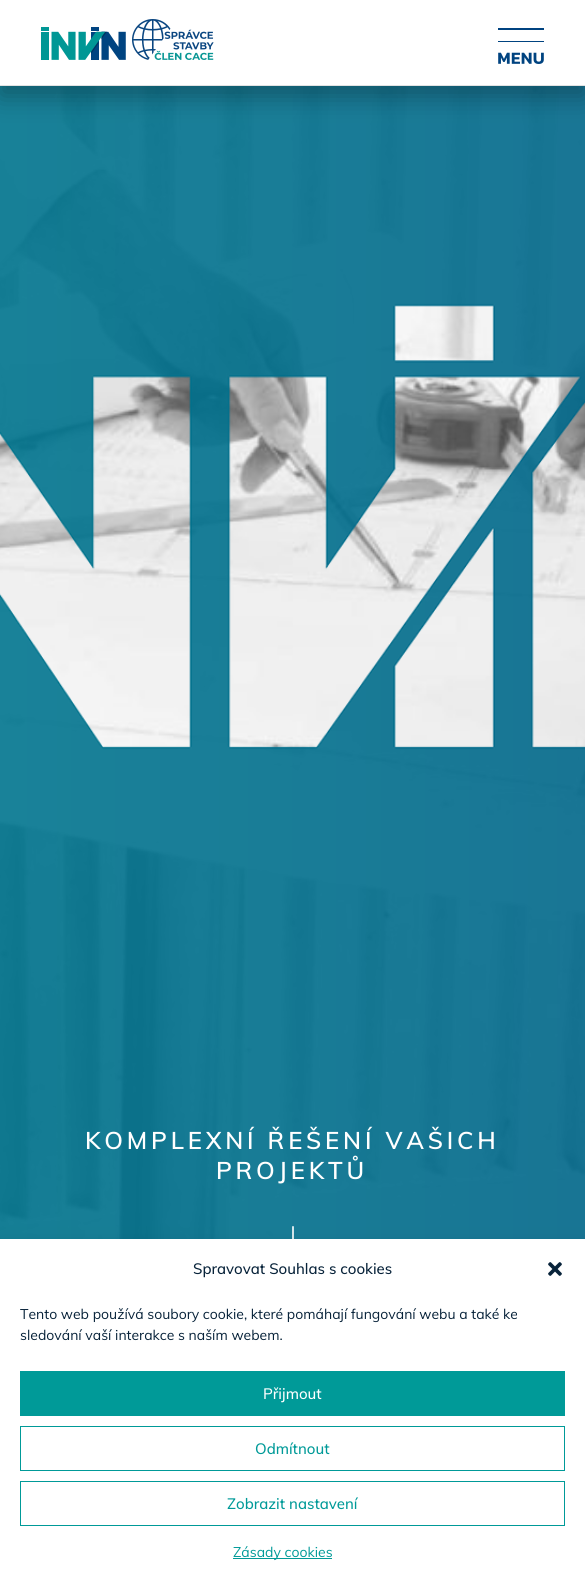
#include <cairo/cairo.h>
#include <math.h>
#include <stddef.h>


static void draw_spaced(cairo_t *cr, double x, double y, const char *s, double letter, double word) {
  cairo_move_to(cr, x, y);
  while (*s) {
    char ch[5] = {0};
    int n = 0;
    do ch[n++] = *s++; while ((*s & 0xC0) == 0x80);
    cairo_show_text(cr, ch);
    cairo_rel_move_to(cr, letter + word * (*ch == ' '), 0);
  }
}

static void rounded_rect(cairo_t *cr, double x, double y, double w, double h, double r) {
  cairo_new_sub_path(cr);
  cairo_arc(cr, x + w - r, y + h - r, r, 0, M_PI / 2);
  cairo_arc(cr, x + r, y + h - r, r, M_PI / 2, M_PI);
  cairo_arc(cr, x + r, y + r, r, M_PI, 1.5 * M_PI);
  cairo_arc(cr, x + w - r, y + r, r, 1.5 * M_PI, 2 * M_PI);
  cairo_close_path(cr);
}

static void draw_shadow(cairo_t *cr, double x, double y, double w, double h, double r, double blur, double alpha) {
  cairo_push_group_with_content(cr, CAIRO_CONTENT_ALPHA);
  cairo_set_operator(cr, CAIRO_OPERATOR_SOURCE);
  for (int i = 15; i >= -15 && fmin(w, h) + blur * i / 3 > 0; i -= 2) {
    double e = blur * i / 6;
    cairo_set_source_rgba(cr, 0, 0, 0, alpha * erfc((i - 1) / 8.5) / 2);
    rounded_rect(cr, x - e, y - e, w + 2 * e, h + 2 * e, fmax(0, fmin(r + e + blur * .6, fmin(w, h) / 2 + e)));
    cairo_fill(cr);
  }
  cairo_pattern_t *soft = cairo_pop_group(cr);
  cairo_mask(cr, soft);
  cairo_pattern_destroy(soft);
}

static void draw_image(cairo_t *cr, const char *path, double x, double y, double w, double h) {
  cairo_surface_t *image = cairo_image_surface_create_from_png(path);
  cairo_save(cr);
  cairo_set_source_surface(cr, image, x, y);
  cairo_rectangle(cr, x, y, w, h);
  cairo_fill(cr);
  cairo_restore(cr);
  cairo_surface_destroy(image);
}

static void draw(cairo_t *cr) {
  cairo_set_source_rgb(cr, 1, 1, 1);
  cairo_paint(cr);
  draw_image(cr, "images/3.png", 0, 86, 585, 1153);
  draw_image(cr, "images/4.png", 0, 86, 585, 1153);
  cairo_set_source_rgb(cr, 0, 0, 0);
  draw_shadow(cr, 0, 10, 585, 86, 0, 12.5, 0.3);
  cairo_set_source_rgb(cr, 1, 1, 1);
  cairo_rectangle(cr, 0, 0, 585, 85);
  cairo_fill(cr);
  cairo_set_source_rgb(cr, 226 / 255.0, 226 / 255.0, 226 / 255.0);
  cairo_rectangle(cr, 0, 85, 585, 1);
  cairo_fill(cr);
  draw_image(cr, "images/1.png", 41, 19, 173, 41);
  draw_image(cr, "images/2.png", 498, 28, 46, 36);
  draw_image(cr, "images/5.png", 292, 1226, 2, 13);
  cairo_set_source_rgb(cr, 0, 0, 0);
  draw_shadow(cr, 0, 1249, 585, 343, 0, 10, 0.19);
  cairo_set_source_rgb(cr, 1, 1, 1);
  cairo_rectangle(cr, 0, 1239, 585, 343);
  cairo_fill(cr);
  draw_image(cr, "images/6.png", 548, 1262, 14, 14);
  cairo_set_source_rgb(cr, 0, 154 / 255.0, 152 / 255.0);
  cairo_rectangle(cr, 20, 1371, 545, 45);
  cairo_fill(cr);
  cairo_rectangle(cr, 20.5, 1426.5, 544, 44);
  cairo_set_line_width(cr, 1);
  cairo_stroke(cr);
  cairo_rectangle(cr, 20.5, 1481.5, 544, 44);
  cairo_stroke(cr);
  cairo_rectangle(cr, 233, 1558, 99, 1);
  cairo_fill(cr);
  cairo_select_font_face(cr, "Muli SemiBold", CAIRO_FONT_SLANT_NORMAL, CAIRO_FONT_WEIGHT_NORMAL);
  cairo_set_font_size(cr, 24);
  cairo_set_source_rgb(cr, 1, 1, 1);
  draw_spaced(cr, 85, 1149, "KOMPLEXNÍ ŘEŠENÍ VAŠICH", 3.8, 0);
  draw_spaced(cr, 216, 1179, "PROJEKTŮ", 3.8, 0);
  cairo_select_font_face(cr, "Muli Medium", CAIRO_FONT_SLANT_NORMAL, CAIRO_FONT_WEIGHT_NORMAL);
  cairo_set_font_size(cr, 15);
  cairo_set_source_rgb(cr, 8 / 255.0, 35 / 255.0, 58 / 255.0);
  cairo_move_to(cr, 193, 1274);
  cairo_show_text(cr, "Spravovat Souhlas s cookies");
  cairo_select_font_face(cr, "Muli", CAIRO_FONT_SLANT_NORMAL, CAIRO_FONT_WEIGHT_NORMAL);
  cairo_set_font_size(cr, 14);
  cairo_move_to(cr, 20, 1319);
  cairo_show_text(cr, "Tento web používá soubory cookie, které pomáhají fungování webu a také ke");
  cairo_move_to(cr, 20, 1340);
  cairo_show_text(cr, "sledování vaší interakce s naším webem.");
  cairo_select_font_face(cr, "Muli Medium", CAIRO_FONT_SLANT_NORMAL, CAIRO_FONT_WEIGHT_NORMAL);
  cairo_set_font_size(cr, 15);
  cairo_set_source_rgb(cr, 1, 1, 1);
  cairo_move_to(cr, 263, 1399);
  cairo_show_text(cr, "Přijmout");
  cairo_set_source_rgb(cr, 0, 154 / 255.0, 152 / 255.0);
  cairo_move_to(cr, 255, 1454);
  cairo_show_text(cr, "Odmítnout");
  cairo_move_to(cr, 227, 1509);
  cairo_show_text(cr, "Zobrazit nastavení");
  cairo_select_font_face(cr, "Muli", CAIRO_FONT_SLANT_NORMAL, CAIRO_FONT_WEIGHT_NORMAL);
  cairo_set_font_size(cr, 14);
  cairo_move_to(cr, 233, 1557);
  cairo_show_text(cr, "Zásady cookies");
}

int main(void) {
  cairo_surface_t *surface = cairo_image_surface_create(CAIRO_FORMAT_RGB24, 585, 1582);
  cairo_t *cr = cairo_create(surface);
  cairo_font_options_t *options = cairo_font_options_create();
  cairo_font_options_set_hint_metrics(options, CAIRO_HINT_METRICS_OFF);
  cairo_font_options_set_hint_style(options, CAIRO_HINT_STYLE_NONE);
  cairo_set_font_options(cr, options);
  cairo_set_miter_limit(cr, 4);
  draw(cr);
  cairo_surface_write_to_png(surface, "out.png");
  cairo_font_options_destroy(options);
  cairo_destroy(cr);
  cairo_surface_destroy(surface);
  return 0;
}
